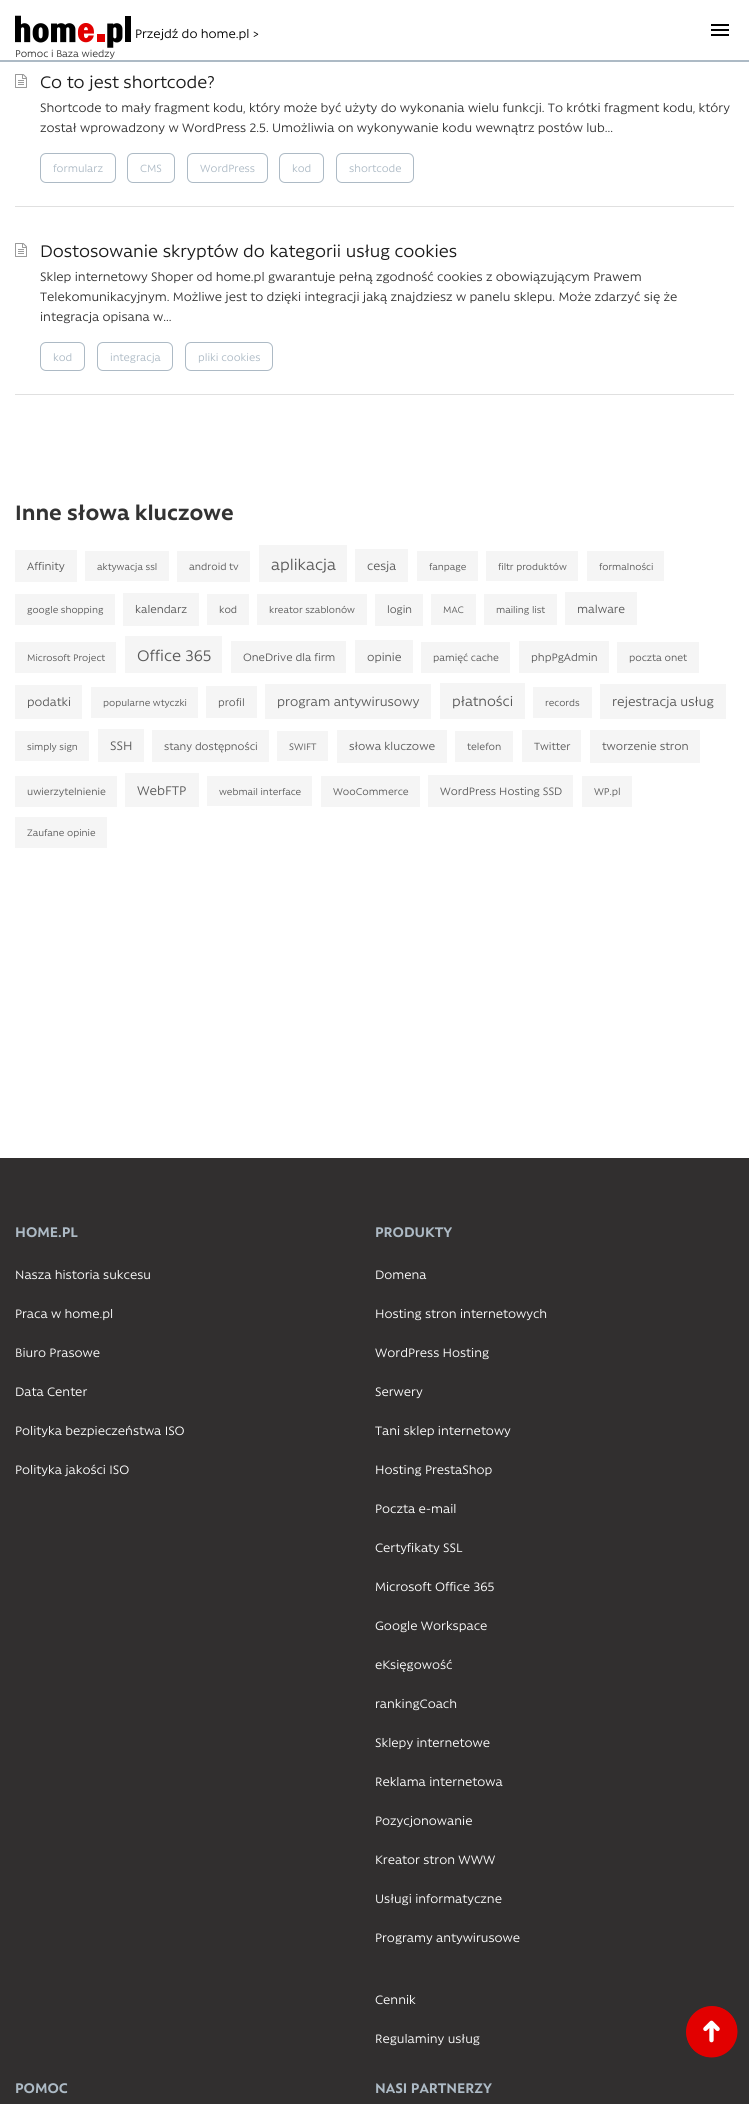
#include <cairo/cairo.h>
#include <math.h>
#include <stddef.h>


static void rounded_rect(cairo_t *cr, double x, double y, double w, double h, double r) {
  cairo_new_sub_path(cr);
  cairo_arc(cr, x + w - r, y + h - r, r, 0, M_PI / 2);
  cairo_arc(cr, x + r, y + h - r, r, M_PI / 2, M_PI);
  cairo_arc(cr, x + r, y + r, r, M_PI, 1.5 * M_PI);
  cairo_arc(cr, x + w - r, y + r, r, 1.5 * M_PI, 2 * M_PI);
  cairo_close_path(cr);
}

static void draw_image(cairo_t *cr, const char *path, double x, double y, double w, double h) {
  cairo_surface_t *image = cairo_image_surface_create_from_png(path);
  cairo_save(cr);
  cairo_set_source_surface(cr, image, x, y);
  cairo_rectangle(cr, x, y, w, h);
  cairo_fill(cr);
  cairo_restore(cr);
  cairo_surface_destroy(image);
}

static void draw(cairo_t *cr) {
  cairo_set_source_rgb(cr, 1, 1, 1);
  cairo_paint(cr);
  cairo_set_source_rgb(cr, 173 / 255.0, 186 / 255.0, 197 / 255.0);
  cairo_rectangle(cr, 0, 60, 749, 2);
  cairo_fill(cr);
  cairo_set_source_rgb(cr, 0, 0, 0);
  cairo_rectangle(cr, 711, 24, 18, 2);
  cairo_fill(cr);
  cairo_rectangle(cr, 711, 29, 18, 2);
  cairo_fill(cr);
  cairo_rectangle(cr, 711, 34, 18, 2);
  cairo_fill(cr);
  draw_image(cr, "images/1.png", 15, 15, 116, 33);
  cairo_set_source_rgb(cr, 224 / 255.0, 224 / 255.0, 224 / 255.0);
  cairo_rectangle(cr, 15, 206, 719, 1);
  cairo_fill(cr);
  draw_image(cr, "images/2.png", 15, 74, 12, 14);
  rounded_rect(cr, 40.5, 153.5, 75, 29, 5.5);
  cairo_set_source_rgb(cr, 173 / 255.0, 186 / 255.0, 197 / 255.0);
  cairo_set_line_width(cr, 1);
  cairo_stroke(cr);
  rounded_rect(cr, 127.5, 153.5, 47, 29, 5.5);
  cairo_stroke(cr);
  rounded_rect(cr, 187.5, 153.5, 80, 29, 5.5);
  cairo_stroke(cr);
  rounded_rect(cr, 279.5, 153.5, 44, 29, 5.5);
  cairo_stroke(cr);
  rounded_rect(cr, 336.5, 153.5, 77, 29, 5.5);
  cairo_stroke(cr);
  cairo_set_source_rgb(cr, 224 / 255.0, 224 / 255.0, 224 / 255.0);
  cairo_rectangle(cr, 15, 394, 719, 1);
  cairo_fill(cr);
  draw_image(cr, "images/2.png", 15, 243, 12, 14);
  rounded_rect(cr, 40.5, 342.5, 44, 28, 5.5);
  cairo_set_source_rgb(cr, 173 / 255.0, 186 / 255.0, 197 / 255.0);
  cairo_stroke(cr);
  rounded_rect(cr, 97.5, 342.5, 75, 28, 5.5);
  cairo_stroke(cr);
  rounded_rect(cr, 185.5, 342.5, 87, 28, 5.5);
  cairo_stroke(cr);
  cairo_set_source_rgb(cr, 245 / 255.0, 245 / 255.0, 245 / 255.0);
  cairo_rectangle(cr, 15, 550, 62, 32);
  cairo_fill(cr);
  cairo_rectangle(cr, 85, 551, 84, 30);
  cairo_fill(cr);
  cairo_rectangle(cr, 177, 551, 73, 31);
  cairo_fill(cr);
  cairo_rectangle(cr, 259, 545, 88, 37);
  cairo_fill(cr);
  cairo_rectangle(cr, 355, 549, 53, 33);
  cairo_fill(cr);
  cairo_rectangle(cr, 417, 551, 61, 30);
  cairo_fill(cr);
  cairo_rectangle(cr, 486, 551, 92, 30);
  cairo_fill(cr);
  cairo_rectangle(cr, 587, 551, 77, 30);
  cairo_fill(cr);
  cairo_rectangle(cr, 15, 594, 100, 31);
  cairo_fill(cr);
  cairo_rectangle(cr, 123, 593, 76, 33);
  cairo_fill(cr);
  cairo_rectangle(cr, 207, 594, 42, 31);
  cairo_fill(cr);
  cairo_rectangle(cr, 257, 594, 110, 31);
  cairo_fill(cr);
  cairo_rectangle(cr, 375, 594, 48, 32);
  cairo_fill(cr);
  cairo_rectangle(cr, 431, 594, 45, 31);
  cairo_fill(cr);
  cairo_rectangle(cr, 484, 594, 73, 31);
  cairo_fill(cr);
  cairo_rectangle(cr, 565, 592, 72, 33);
  cairo_fill(cr);
  cairo_rectangle(cr, 15, 642, 101, 31);
  cairo_fill(cr);
  cairo_rectangle(cr, 125, 636, 97, 37);
  cairo_fill(cr);
  cairo_rectangle(cr, 231, 641, 115, 32);
  cairo_fill(cr);
  cairo_rectangle(cr, 355, 640, 58, 33);
  cairo_fill(cr);
  cairo_rectangle(cr, 421, 642, 89, 31);
  cairo_fill(cr);
  cairo_rectangle(cr, 519, 641, 90, 32);
  cairo_fill(cr);
  cairo_rectangle(cr, 617, 642, 82, 31);
  cairo_fill(cr);
  cairo_rectangle(cr, 15, 685, 67, 34);
  cairo_fill(cr);
  cairo_rectangle(cr, 91, 687, 107, 31);
  cairo_fill(cr);
  cairo_rectangle(cr, 206, 686, 51, 32);
  cairo_fill(cr);
  cairo_rectangle(cr, 265, 684, 166, 35);
  cairo_fill(cr);
  cairo_rectangle(cr, 440, 683, 85, 36);
  cairo_fill(cr);
  cairo_rectangle(cr, 533, 687, 59, 31);
  cairo_fill(cr);
  cairo_rectangle(cr, 600, 684, 126, 35);
  cairo_fill(cr);
  cairo_rectangle(cr, 15, 731, 74, 30);
  cairo_fill(cr);
  cairo_rectangle(cr, 98, 729, 46, 33);
  cairo_fill(cr);
  cairo_rectangle(cr, 152, 730, 117, 32);
  cairo_fill(cr);
  cairo_rectangle(cr, 277, 731, 51, 30);
  cairo_fill(cr);
  cairo_rectangle(cr, 337, 730, 110, 33);
  cairo_fill(cr);
  cairo_rectangle(cr, 455, 731, 58, 31);
  cairo_fill(cr);
  cairo_rectangle(cr, 522, 730, 59, 32);
  cairo_fill(cr);
  cairo_rectangle(cr, 590, 730, 110, 33);
  cairo_fill(cr);
  cairo_rectangle(cr, 15, 776, 102, 31);
  cairo_fill(cr);
  cairo_rectangle(cr, 125, 773, 74, 34);
  cairo_fill(cr);
  cairo_rectangle(cr, 207, 776, 105, 30);
  cairo_fill(cr);
  cairo_rectangle(cr, 321, 776, 99, 31);
  cairo_fill(cr);
  cairo_rectangle(cr, 428, 775, 145, 32);
  cairo_fill(cr);
  cairo_rectangle(cr, 582, 776, 50, 31);
  cairo_fill(cr);
  cairo_rectangle(cr, 15, 817, 92, 31);
  cairo_fill(cr);
  cairo_set_source_rgb(cr, 49 / 255.0, 47 / 255.0, 47 / 255.0);
  cairo_rectangle(cr, 0, 1158, 749, 946);
  cairo_fill(cr);
  draw_image(cr, "images/3.png", 686, 2006, 52, 52);
  cairo_select_font_face(cr, "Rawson", CAIRO_FONT_SLANT_NORMAL, CAIRO_FONT_WEIGHT_NORMAL);
  cairo_set_font_size(cr, 14);
  cairo_set_source_rgb(cr, 0, 0, 0);
  cairo_move_to(cr, 135, 38);
  cairo_show_text(cr, "Przejdź do home.pl >");
  cairo_set_font_size(cr, 11.25);
  cairo_set_source_rgb(cr, 51 / 255.0, 51 / 255.0, 51 / 255.0);
  cairo_move_to(cr, 15, 57);
  cairo_show_text(cr, "Pomoc i Baza wiedzy");
  cairo_set_font_size(cr, 19.2);
  cairo_set_source_rgb(cr, 27 / 255.0, 27 / 255.0, 27 / 255.0);
  cairo_move_to(cr, 40, 88);
  cairo_show_text(cr, "Co to jest shortcode?");
  cairo_set_font_size(cr, 14);
  cairo_set_source_rgb(cr, 51 / 255.0, 51 / 255.0, 51 / 255.0);
  cairo_move_to(cr, 40, 112);
  cairo_show_text(cr, "Shortcode to mały fragment kodu, który może być użyty do wykonania wielu funkcji. To krótki fragment kodu, który");
  cairo_move_to(cr, 40, 132);
  cairo_show_text(cr, "został wprowadzony w WordPress 2.5. Umożliwia on wykonywanie kodu wewnątrz postów lub...");
  cairo_set_font_size(cr, 12);
  cairo_set_source_rgb(cr, 173 / 255.0, 186 / 255.0, 197 / 255.0);
  cairo_move_to(cr, 53, 172);
  cairo_show_text(cr, "formularz");
  cairo_move_to(cr, 140, 172);
  cairo_show_text(cr, "CMS");
  cairo_move_to(cr, 200, 172);
  cairo_show_text(cr, "WordPress");
  cairo_move_to(cr, 292, 172);
  cairo_show_text(cr, "kod");
  cairo_move_to(cr, 349, 172);
  cairo_show_text(cr, "shortcode");
  cairo_set_font_size(cr, 19.2);
  cairo_set_source_rgb(cr, 27 / 255.0, 27 / 255.0, 27 / 255.0);
  cairo_move_to(cr, 40, 257);
  cairo_show_text(cr, "Dostosowanie skryptów do kategorii usług cookies");
  cairo_set_font_size(cr, 14);
  cairo_set_source_rgb(cr, 51 / 255.0, 51 / 255.0, 51 / 255.0);
  cairo_move_to(cr, 40, 281);
  cairo_show_text(cr, "Sklep internetowy Shoper od home.pl gwarantuje pełną zgodność cookies z obowiązującym Prawem");
  cairo_move_to(cr, 40, 301);
  cairo_show_text(cr, "Telekomunikacyjnym. Możliwe jest to dzięki integracji jaką znajdziesz w panelu sklepu. Może zdarzyć się że");
  cairo_move_to(cr, 40, 321);
  cairo_show_text(cr, "integracja opisana w...");
  cairo_set_font_size(cr, 12);
  cairo_set_source_rgb(cr, 173 / 255.0, 186 / 255.0, 197 / 255.0);
  cairo_move_to(cr, 53, 361);
  cairo_show_text(cr, "kod");
  cairo_move_to(cr, 110, 361);
  cairo_show_text(cr, "integracja");
  cairo_move_to(cr, 198, 361);
  cairo_show_text(cr, "pliki cookies");
  cairo_select_font_face(cr, "Rawson", CAIRO_FONT_SLANT_NORMAL, CAIRO_FONT_WEIGHT_BOLD);
  cairo_set_font_size(cr, 24);
  cairo_set_source_rgb(cr, 51 / 255.0, 51 / 255.0, 51 / 255.0);
  cairo_move_to(cr, 15, 520);
  cairo_show_text(cr, "Inne słowa kluczowe");
  cairo_select_font_face(cr, "Rawson", CAIRO_FONT_SLANT_NORMAL, CAIRO_FONT_WEIGHT_NORMAL);
  cairo_set_font_size(cr, 12.5);
  cairo_set_source_rgb(cr, 89 / 255.0, 89 / 255.0, 89 / 255.0);
  cairo_move_to(cr, 27, 570);
  cairo_show_text(cr, "Affinity");
  cairo_set_font_size(cr, 10.75);
  cairo_move_to(cr, 97, 570);
  cairo_show_text(cr, "aktywacja ssl");
  cairo_set_font_size(cr, 11.25);
  cairo_move_to(cr, 189, 570);
  cairo_show_text(cr, "android tv");
  cairo_set_font_size(cr, 17.5);
  cairo_move_to(cr, 271, 570);
  cairo_show_text(cr, "aplikacja");
  cairo_set_font_size(cr, 13.5);
  cairo_move_to(cr, 367, 570);
  cairo_show_text(cr, "cesja");
  cairo_set_font_size(cr, 10.75);
  cairo_move_to(cr, 429, 570);
  cairo_show_text(cr, "fanpage");
  cairo_move_to(cr, 498, 570);
  cairo_show_text(cr, "filtr produktów");
  cairo_move_to(cr, 599, 570);
  cairo_show_text(cr, "formalności");
  cairo_move_to(cr, 27, 613);
  cairo_show_text(cr, "google shopping");
  cairo_set_font_size(cr, 12.5);
  cairo_move_to(cr, 135, 613);
  cairo_show_text(cr, "kalendarz");
  cairo_set_font_size(cr, 11.25);
  cairo_move_to(cr, 219, 613);
  cairo_show_text(cr, "kod");
  cairo_set_font_size(cr, 10.75);
  cairo_move_to(cr, 269, 613);
  cairo_show_text(cr, "kreator szablonów");
  cairo_set_font_size(cr, 12);
  cairo_move_to(cr, 387, 613);
  cairo_show_text(cr, "login");
  cairo_set_font_size(cr, 10.75);
  cairo_move_to(cr, 443, 613);
  cairo_show_text(cr, "MAC");
  cairo_move_to(cr, 496, 613);
  cairo_show_text(cr, "mailing list");
  cairo_set_font_size(cr, 13);
  cairo_move_to(cr, 577, 613);
  cairo_show_text(cr, "malware");
  cairo_set_font_size(cr, 10.75);
  cairo_move_to(cr, 27, 661);
  cairo_show_text(cr, "Microsoft Project");
  cairo_set_font_size(cr, 17.5);
  cairo_move_to(cr, 137, 661);
  cairo_show_text(cr, "Office 365");
  cairo_set_font_size(cr, 12.25);
  cairo_move_to(cr, 243, 661);
  cairo_show_text(cr, "OneDrive dla firm");
  cairo_set_font_size(cr, 13);
  cairo_move_to(cr, 367, 661);
  cairo_show_text(cr, "opinie");
  cairo_set_font_size(cr, 11.25);
  cairo_move_to(cr, 433, 661);
  cairo_show_text(cr, "pamięć cache");
  cairo_set_font_size(cr, 12.25);
  cairo_move_to(cr, 531, 661);
  cairo_show_text(cr, "phpPgAdmin");
  cairo_set_font_size(cr, 11.25);
  cairo_move_to(cr, 629, 661);
  cairo_show_text(cr, "poczta onet");
  cairo_set_font_size(cr, 13.5);
  cairo_move_to(cr, 27, 706);
  cairo_show_text(cr, "podatki");
  cairo_set_font_size(cr, 10.75);
  cairo_move_to(cr, 103, 706);
  cairo_show_text(cr, "popularne wtyczki");
  cairo_set_font_size(cr, 12);
  cairo_move_to(cr, 218, 706);
  cairo_show_text(cr, "profil");
  cairo_set_font_size(cr, 14.4);
  cairo_move_to(cr, 277, 706);
  cairo_show_text(cr, "program antywirusowy");
  cairo_set_font_size(cr, 15.5);
  cairo_move_to(cr, 452, 706);
  cairo_show_text(cr, "płatności");
  cairo_set_font_size(cr, 10.75);
  cairo_move_to(cr, 545, 706);
  cairo_show_text(cr, "records");
  cairo_set_font_size(cr, 14.5);
  cairo_move_to(cr, 612, 706);
  cairo_show_text(cr, "rejestracja usług");
  cairo_set_font_size(cr, 10.75);
  cairo_move_to(cr, 27, 750);
  cairo_show_text(cr, "simply sign");
  cairo_set_font_size(cr, 14);
  cairo_move_to(cr, 110, 750);
  cairo_show_text(cr, "SSH");
  cairo_set_font_size(cr, 12);
  cairo_move_to(cr, 164, 750);
  cairo_show_text(cr, "stany dostępności");
  cairo_set_font_size(cr, 10.75);
  cairo_move_to(cr, 289, 750);
  cairo_show_text(cr, "SWIFT");
  cairo_set_font_size(cr, 12.75);
  cairo_move_to(cr, 349, 750);
  cairo_show_text(cr, "słowa kluczowe");
  cairo_set_font_size(cr, 11.25);
  cairo_move_to(cr, 467, 750);
  cairo_show_text(cr, "telefon");
  cairo_set_font_size(cr, 12);
  cairo_move_to(cr, 534, 750);
  cairo_show_text(cr, "Twitter");
  cairo_set_font_size(cr, 12.75);
  cairo_move_to(cr, 602, 750);
  cairo_show_text(cr, "tworzenie stron");
  cairo_set_font_size(cr, 11.25);
  cairo_move_to(cr, 27, 795);
  cairo_show_text(cr, "uwierzytelnienie");
  cairo_set_font_size(cr, 14.4);
  cairo_move_to(cr, 137, 795);
  cairo_show_text(cr, "WebFTP");
  cairo_set_font_size(cr, 10.75);
  cairo_move_to(cr, 219, 795);
  cairo_show_text(cr, "webmail interface");
  cairo_set_font_size(cr, 11.25);
  cairo_move_to(cr, 333, 795);
  cairo_show_text(cr, "WooCommerce");
  cairo_set_font_size(cr, 12.25);
  cairo_move_to(cr, 440, 795);
  cairo_show_text(cr, "WordPress Hosting SSD");
  cairo_set_font_size(cr, 11.25);
  cairo_move_to(cr, 594, 795);
  cairo_show_text(cr, "WP.pl");
  cairo_set_font_size(cr, 10.75);
  cairo_move_to(cr, 27, 836);
  cairo_show_text(cr, "Zaufane opinie");
  cairo_select_font_face(cr, "Rawson", CAIRO_FONT_SLANT_NORMAL, CAIRO_FONT_WEIGHT_BOLD);
  cairo_set_font_size(cr, 16);
  cairo_set_source_rgb(cr, 173 / 255.0, 186 / 255.0, 197 / 255.0);
  cairo_move_to(cr, 15, 1237);
  cairo_show_text(cr, "HOME.PL");
  cairo_select_font_face(cr, "Rawson", CAIRO_FONT_SLANT_NORMAL, CAIRO_FONT_WEIGHT_NORMAL);
  cairo_set_font_size(cr, 14);
  cairo_set_source_rgb(cr, 1, 1, 1);
  cairo_move_to(cr, 15, 1279);
  cairo_show_text(cr, "Nasza historia sukcesu");
  cairo_move_to(cr, 15, 1318);
  cairo_show_text(cr, "Praca w home.pl");
  cairo_move_to(cr, 15, 1357);
  cairo_show_text(cr, "Biuro Prasowe");
  cairo_move_to(cr, 15, 1396);
  cairo_show_text(cr, "Data Center");
  cairo_move_to(cr, 15, 1435);
  cairo_show_text(cr, "Polityka bezpieczeństwa ISO");
  cairo_move_to(cr, 15, 1474);
  cairo_show_text(cr, "Polityka jakości ISO");
  cairo_select_font_face(cr, "Rawson", CAIRO_FONT_SLANT_NORMAL, CAIRO_FONT_WEIGHT_BOLD);
  cairo_set_font_size(cr, 16);
  cairo_set_source_rgb(cr, 173 / 255.0, 186 / 255.0, 197 / 255.0);
  cairo_move_to(cr, 375, 1237);
  cairo_show_text(cr, "PRODUKTY");
  cairo_select_font_face(cr, "Rawson", CAIRO_FONT_SLANT_NORMAL, CAIRO_FONT_WEIGHT_NORMAL);
  cairo_set_font_size(cr, 14);
  cairo_set_source_rgb(cr, 1, 1, 1);
  cairo_move_to(cr, 375, 1279);
  cairo_show_text(cr, "Domena");
  cairo_move_to(cr, 375, 1318);
  cairo_show_text(cr, "Hosting stron internetowych");
  cairo_move_to(cr, 375, 1357);
  cairo_show_text(cr, "WordPress Hosting");
  cairo_move_to(cr, 375, 1396);
  cairo_show_text(cr, "Serwery");
  cairo_move_to(cr, 375, 1435);
  cairo_show_text(cr, "Tani sklep internetowy");
  cairo_move_to(cr, 375, 1474);
  cairo_show_text(cr, "Hosting PrestaShop");
  cairo_move_to(cr, 375, 1513);
  cairo_show_text(cr, "Poczta e-mail");
  cairo_move_to(cr, 375, 1552);
  cairo_show_text(cr, "Certyfikaty SSL");
  cairo_move_to(cr, 375, 1591);
  cairo_show_text(cr, "Microsoft Office 365");
  cairo_move_to(cr, 375, 1630);
  cairo_show_text(cr, "Google Workspace");
  cairo_move_to(cr, 375, 1669);
  cairo_show_text(cr, "eKsięgowość");
  cairo_move_to(cr, 375, 1708);
  cairo_show_text(cr, "rankingCoach");
  cairo_move_to(cr, 375, 1747);
  cairo_show_text(cr, "Sklepy internetowe");
  cairo_move_to(cr, 375, 1786);
  cairo_show_text(cr, "Reklama internetowa");
  cairo_move_to(cr, 375, 1825);
  cairo_show_text(cr, "Pozycjonowanie");
  cairo_move_to(cr, 375, 1864);
  cairo_show_text(cr, "Kreator stron WWW");
  cairo_move_to(cr, 375, 1903);
  cairo_show_text(cr, "Usługi informatyczne");
  cairo_move_to(cr, 375, 1942);
  cairo_show_text(cr, "Programy antywirusowe");
  cairo_move_to(cr, 375, 2004);
  cairo_show_text(cr, "Cennik");
  cairo_move_to(cr, 375, 2043);
  cairo_show_text(cr, "Regulaminy usług");
  cairo_select_font_face(cr, "Rawson", CAIRO_FONT_SLANT_NORMAL, CAIRO_FONT_WEIGHT_BOLD);
  cairo_set_font_size(cr, 16);
  cairo_set_source_rgb(cr, 173 / 255.0, 186 / 255.0, 197 / 255.0);
  cairo_move_to(cr, 15, 2093);
  cairo_show_text(cr, "POMOC");
  cairo_move_to(cr, 375, 2093);
  cairo_show_text(cr, "NASI PARTNERZY");
}

int main(void) {
  cairo_surface_t *surface = cairo_image_surface_create(CAIRO_FORMAT_RGB24, 749, 2104);
  cairo_t *cr = cairo_create(surface);
  cairo_font_options_t *options = cairo_font_options_create();
  cairo_font_options_set_hint_metrics(options, CAIRO_HINT_METRICS_OFF);
  cairo_font_options_set_hint_style(options, CAIRO_HINT_STYLE_NONE);
  cairo_set_font_options(cr, options);
  cairo_set_miter_limit(cr, 4);
  draw(cr);
  cairo_surface_write_to_png(surface, "out.png");
  cairo_font_options_destroy(options);
  cairo_destroy(cr);
  cairo_surface_destroy(surface);
  return 0;
}
